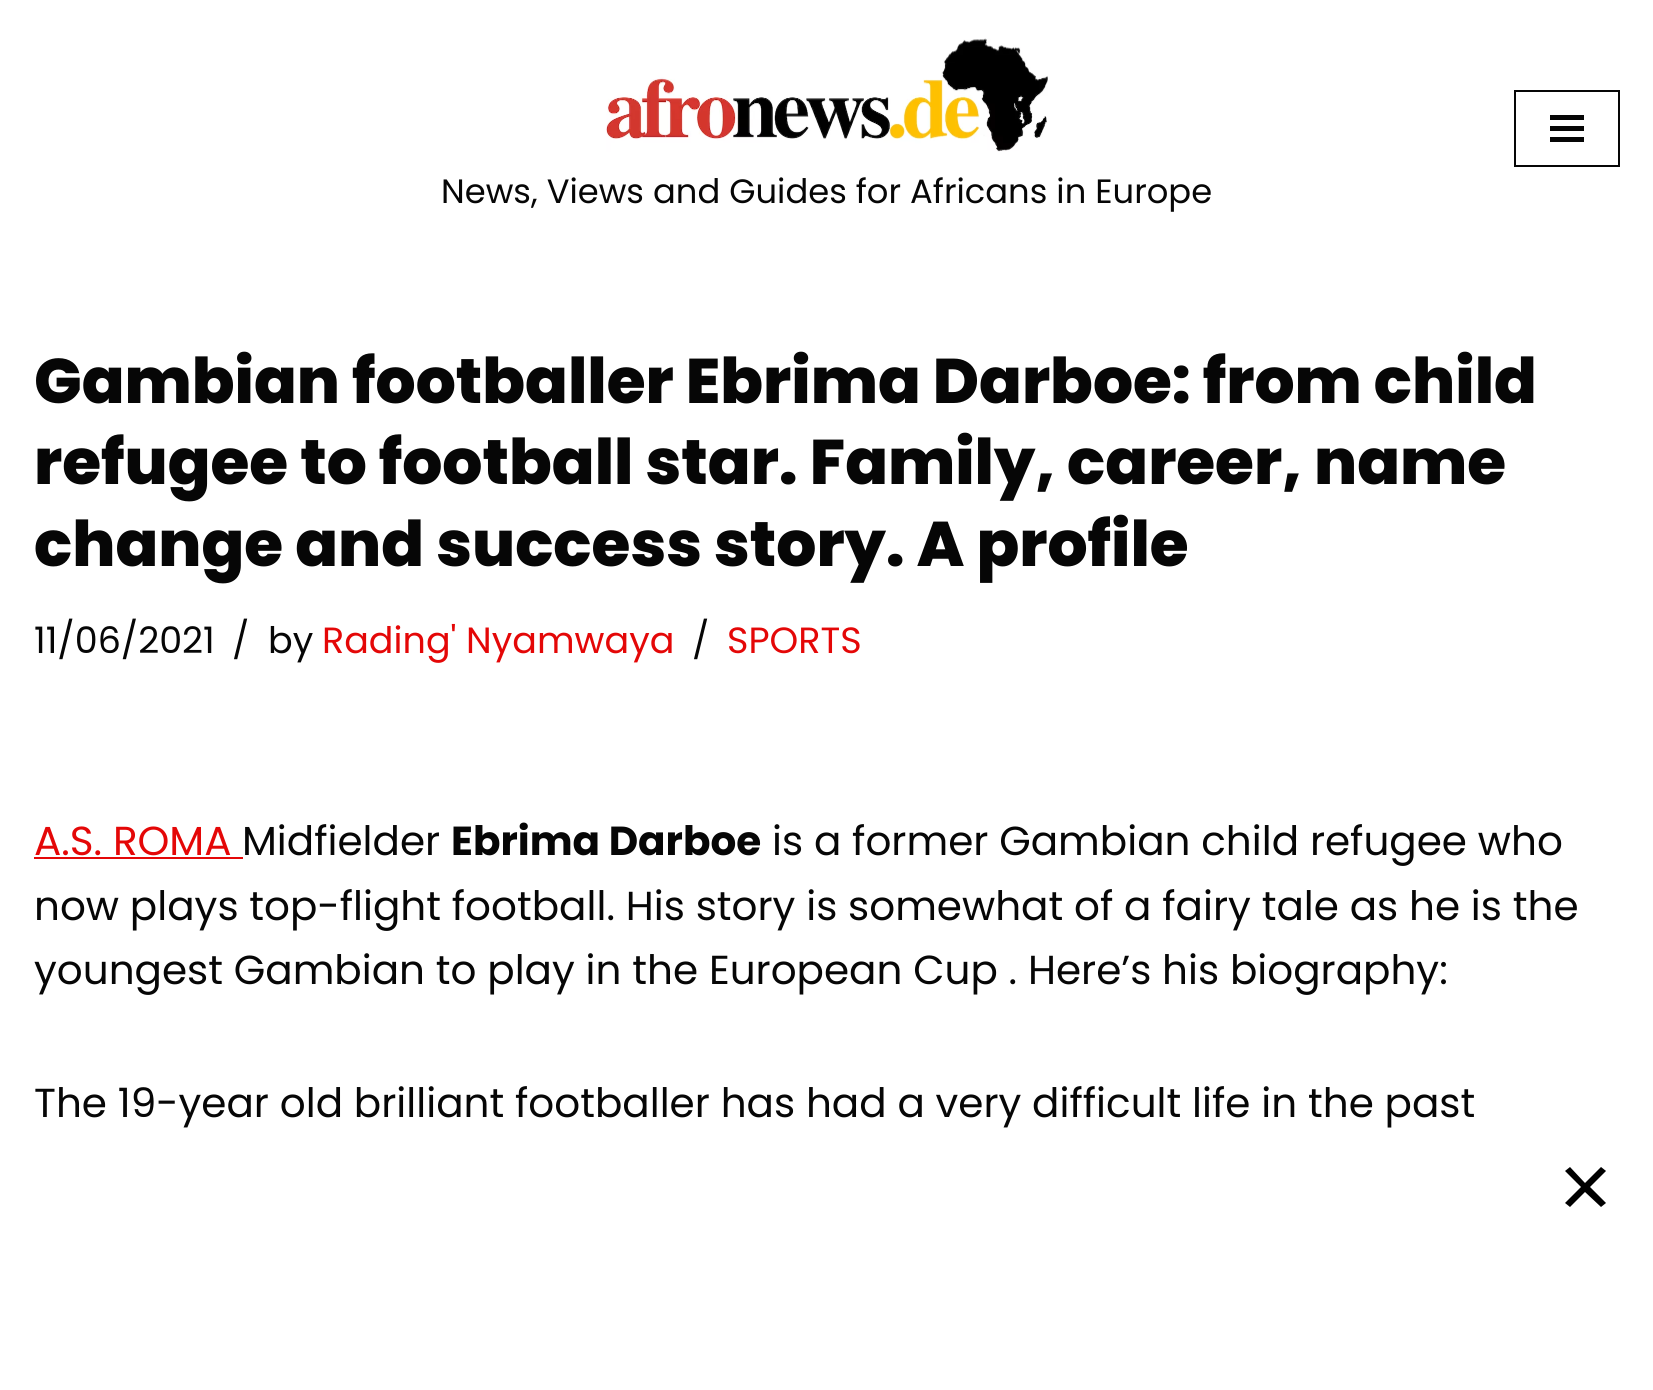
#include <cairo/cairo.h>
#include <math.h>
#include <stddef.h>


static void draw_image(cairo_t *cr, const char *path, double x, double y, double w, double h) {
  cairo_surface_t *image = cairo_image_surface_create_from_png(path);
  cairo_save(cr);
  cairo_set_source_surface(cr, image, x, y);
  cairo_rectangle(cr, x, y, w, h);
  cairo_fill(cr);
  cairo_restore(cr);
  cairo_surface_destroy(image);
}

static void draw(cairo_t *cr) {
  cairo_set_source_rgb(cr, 1, 1, 1);
  cairo_paint(cr);
  cairo_rectangle(cr, 1515, 91, 104, 75);
  cairo_set_source_rgb(cr, 6 / 255.0, 6 / 255.0, 6 / 255.0);
  cairo_stroke(cr);
  cairo_rectangle(cr, 1550, 115, 34, 5);
  cairo_fill(cr);
  cairo_rectangle(cr, 1550, 126, 34, 5);
  cairo_fill(cr);
  cairo_rectangle(cr, 1550, 137, 34, 5);
  cairo_fill(cr);
  draw_image(cr, "images/1.png", 606, 38, 442, 114);
  cairo_set_source_rgb(cr, 228 / 255.0, 7 / 255.0, 7 / 255.0);
  cairo_rectangle(cr, 34, 857, 209, 2);
  cairo_fill(cr);
  cairo_set_source_rgb(cr, 0, 0, 0);
  cairo_new_path(cr);
  cairo_move_to(cr, 1601, 1167);
  cairo_line_to(cr, 1606, 1171);
  cairo_line_to(cr, 1590, 1187);
  cairo_line_to(cr, 1606, 1203);
  cairo_line_to(cr, 1601, 1207);
  cairo_line_to(cr, 1585, 1192);
  cairo_line_to(cr, 1570, 1207);
  cairo_line_to(cr, 1565, 1203);
  cairo_line_to(cr, 1581, 1187);
  cairo_line_to(cr, 1565, 1171);
  cairo_line_to(cr, 1570, 1167);
  cairo_line_to(cr, 1585, 1183);
  cairo_close_path(cr);
  cairo_fill(cr);
  cairo_select_font_face(cr, "Poppins", CAIRO_FONT_SLANT_NORMAL, CAIRO_FONT_WEIGHT_NORMAL);
  cairo_set_font_size(cr, 33.75);
  cairo_set_source_rgb(cr, 6 / 255.0, 6 / 255.0, 6 / 255.0);
  cairo_move_to(cr, 441, 203);
  cairo_show_text(cr, "News, Views and Guides for Africans in Europe");
  cairo_select_font_face(cr, "Poppins ExtraBold", CAIRO_FONT_SLANT_NORMAL, CAIRO_FONT_WEIGHT_NORMAL);
  cairo_set_font_size(cr, 63);
  cairo_move_to(cr, 34, 403);
  cairo_show_text(cr, "Gambian footballer Ebrima Darboe: from child");
  cairo_move_to(cr, 34, 484);
  cairo_show_text(cr, "refugee to football star. Family, career, name");
  cairo_move_to(cr, 34, 566);
  cairo_show_text(cr, "change and success story. A profile");
  cairo_select_font_face(cr, "Poppins", CAIRO_FONT_SLANT_NORMAL, CAIRO_FONT_WEIGHT_NORMAL);
  cairo_set_font_size(cr, 36.5);
  cairo_move_to(cr, 34, 653);
  cairo_show_text(cr, "11/06/2021");
  cairo_move_to(cr, 232, 653);
  cairo_show_text(cr, "/");
  cairo_move_to(cr, 268, 653);
  cairo_show_text(cr, "by");
  cairo_set_source_rgb(cr, 228 / 255.0, 7 / 255.0, 7 / 255.0);
  cairo_move_to(cr, 322, 653);
  cairo_show_text(cr, "Rading' Nyamwaya");
  cairo_set_source_rgb(cr, 6 / 255.0, 6 / 255.0, 6 / 255.0);
  cairo_move_to(cr, 692, 653);
  cairo_show_text(cr, "/");
  cairo_set_source_rgb(cr, 228 / 255.0, 7 / 255.0, 7 / 255.0);
  cairo_move_to(cr, 727, 653);
  cairo_show_text(cr, "SPORTS");
  cairo_set_font_size(cr, 40.5);
  cairo_move_to(cr, 34, 855);
  cairo_show_text(cr, "A.S. ROMA");
  cairo_set_source_rgb(cr, 6 / 255.0, 6 / 255.0, 6 / 255.0);
  cairo_move_to(cr, 242, 855);
  cairo_show_text(cr, "Midfielder");
  cairo_select_font_face(cr, "Poppins", CAIRO_FONT_SLANT_NORMAL, CAIRO_FONT_WEIGHT_BOLD);
  cairo_move_to(cr, 451, 855);
  cairo_show_text(cr, "Ebrima Darboe");
  cairo_select_font_face(cr, "Poppins", CAIRO_FONT_SLANT_NORMAL, CAIRO_FONT_WEIGHT_NORMAL);
  cairo_move_to(cr, 772, 855);
  cairo_show_text(cr, "is a former Gambian child refugee who");
  cairo_move_to(cr, 34, 920);
  cairo_show_text(cr, "now plays top-flight football. His story is somewhat of a fairy tale as he is the");
  cairo_move_to(cr, 34, 984);
  cairo_show_text(cr, "youngest Gambian to play in the European Cup . Here’s his biography:");
  cairo_move_to(cr, 34, 1117);
  cairo_show_text(cr, "The 19-year old brilliant footballer has had a very difficult life in the past");
}

int main(void) {
  cairo_surface_t *surface = cairo_image_surface_create(CAIRO_FORMAT_RGB24, 1653, 1390);
  cairo_t *cr = cairo_create(surface);
  cairo_font_options_t *options = cairo_font_options_create();
  cairo_font_options_set_hint_metrics(options, CAIRO_HINT_METRICS_OFF);
  cairo_font_options_set_hint_style(options, CAIRO_HINT_STYLE_NONE);
  cairo_set_font_options(cr, options);
  cairo_set_miter_limit(cr, 4);
  draw(cr);
  cairo_surface_write_to_png(surface, "out.png");
  cairo_font_options_destroy(options);
  cairo_destroy(cr);
  cairo_surface_destroy(surface);
  return 0;
}
